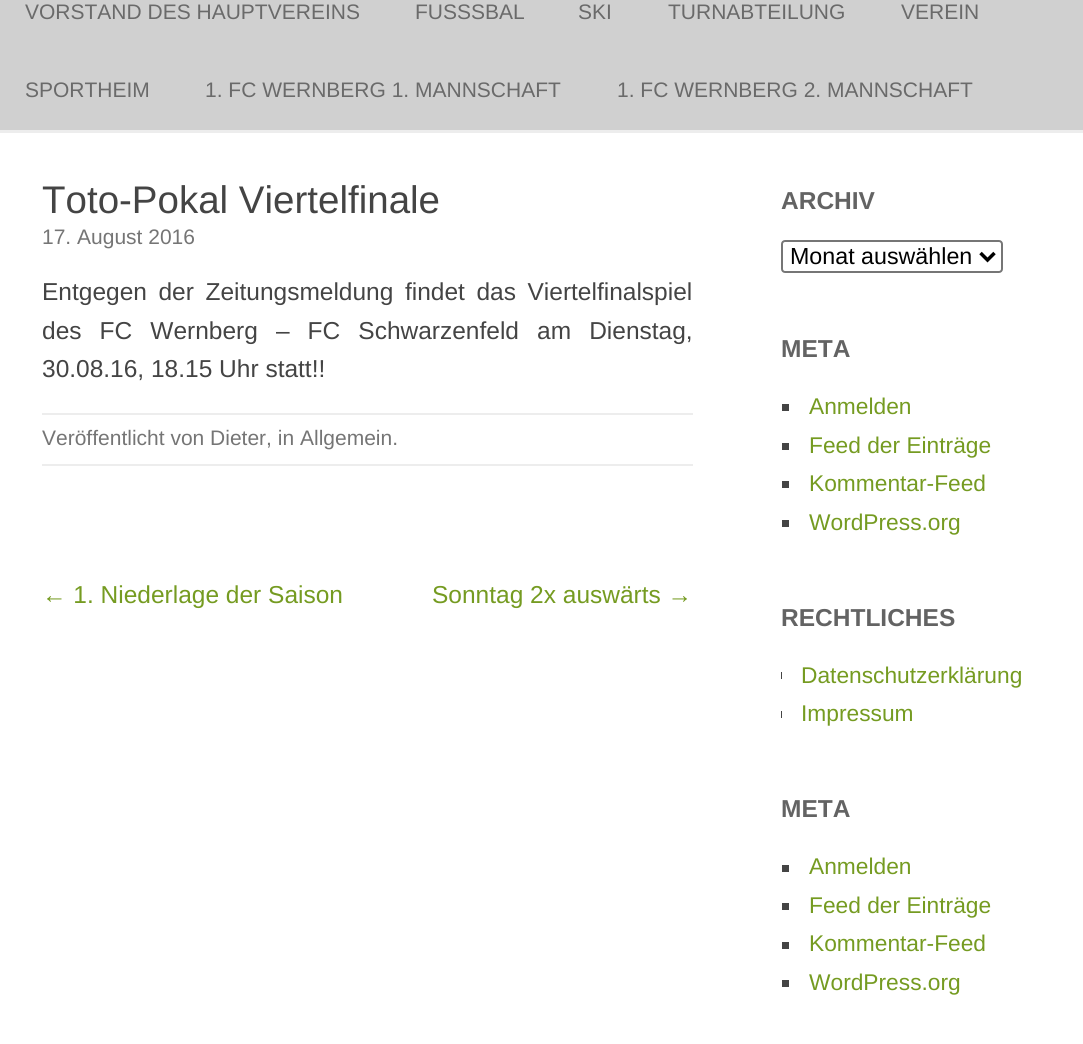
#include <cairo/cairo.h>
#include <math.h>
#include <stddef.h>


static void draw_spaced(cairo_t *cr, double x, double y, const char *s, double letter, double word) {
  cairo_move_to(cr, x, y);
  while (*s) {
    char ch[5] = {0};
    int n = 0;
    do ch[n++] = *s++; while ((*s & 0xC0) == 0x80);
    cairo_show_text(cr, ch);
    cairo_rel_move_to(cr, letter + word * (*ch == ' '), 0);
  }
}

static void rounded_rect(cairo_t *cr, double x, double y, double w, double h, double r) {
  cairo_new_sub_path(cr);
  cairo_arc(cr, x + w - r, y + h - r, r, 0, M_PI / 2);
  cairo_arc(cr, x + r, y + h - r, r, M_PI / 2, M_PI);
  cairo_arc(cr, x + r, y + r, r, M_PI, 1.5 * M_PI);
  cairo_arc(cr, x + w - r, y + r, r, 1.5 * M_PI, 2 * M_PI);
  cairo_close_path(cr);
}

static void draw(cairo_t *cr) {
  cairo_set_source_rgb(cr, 208 / 255.0, 208 / 255.0, 208 / 255.0);
  cairo_paint(cr);
  cairo_set_source_rgb(cr, 237 / 255.0, 237 / 255.0, 237 / 255.0);
  cairo_rectangle(cr, 0, 130, 1083, 3);
  cairo_fill(cr);
  cairo_set_source_rgb(cr, 1, 1, 1);
  cairo_rectangle(cr, 0, 133, 1083, 911);
  cairo_fill(cr);
  cairo_set_source_rgb(cr, 237 / 255.0, 237 / 255.0, 237 / 255.0);
  cairo_rectangle(cr, 42, 413, 651, 2);
  cairo_fill(cr);
  cairo_rectangle(cr, 42, 464, 651, 2);
  cairo_fill(cr);
  rounded_rect(cr, 782, 241, 220, 31, 3);
  cairo_set_source_rgb(cr, 118 / 255.0, 118 / 255.0, 118 / 255.0);
  cairo_stroke(cr);
  cairo_new_path(cr);
  cairo_move_to(cr, 980.5, 253);
  cairo_line_to(cr, 987.5, 260);
  cairo_line_to(cr, 994.5, 253);
  cairo_set_source_rgb(cr, 0, 0, 0);
  cairo_set_line_width(cr, 3.5);
  cairo_stroke(cr);
  cairo_set_source_rgb(cr, 68 / 255.0, 68 / 255.0, 68 / 255.0);
  cairo_rectangle(cr, 782, 404, 7, 7);
  cairo_fill(cr);
  cairo_rectangle(cr, 782, 443, 7, 7);
  cairo_fill(cr);
  cairo_rectangle(cr, 782, 481, 7, 7);
  cairo_fill(cr);
  cairo_rectangle(cr, 782, 520, 7, 7);
  cairo_fill(cr);
  cairo_rectangle(cr, 781, 672, 1, 7);
  cairo_fill(cr);
  cairo_rectangle(cr, 781, 711, 1, 7);
  cairo_fill(cr);
  cairo_rectangle(cr, 782, 865, 7, 7);
  cairo_fill(cr);
  cairo_rectangle(cr, 782, 903, 7, 7);
  cairo_fill(cr);
  cairo_rectangle(cr, 782, 942, 7, 7);
  cairo_fill(cr);
  cairo_rectangle(cr, 782, 980, 7, 7);
  cairo_fill(cr);
  cairo_select_font_face(cr, "Liberation Sans", CAIRO_FONT_SLANT_NORMAL, CAIRO_FONT_WEIGHT_NORMAL);
  cairo_set_font_size(cr, 21);
  cairo_set_source_rgb(cr, 106 / 255.0, 106 / 255.0, 106 / 255.0);
  cairo_move_to(cr, 25, 19);
  cairo_show_text(cr, "VORSTAND DES HAUPTVEREINS");
  cairo_move_to(cr, 415, 19);
  cairo_show_text(cr, "FUSSSBAL");
  cairo_move_to(cr, 578, 19);
  cairo_show_text(cr, "SKI");
  cairo_move_to(cr, 668, 19);
  cairo_show_text(cr, "TURNABTEILUNG");
  cairo_move_to(cr, 901, 19);
  cairo_show_text(cr, "VEREIN");
  cairo_move_to(cr, 25, 97);
  cairo_show_text(cr, "SPORTHEIM");
  cairo_move_to(cr, 205, 97);
  cairo_show_text(cr, "1. FC WERNBERG 1. MANNSCHAFT");
  cairo_move_to(cr, 617, 97);
  cairo_show_text(cr, "1. FC WERNBERG 2. MANNSCHAFT");
  cairo_set_font_size(cr, 38.5);
  cairo_set_source_rgb(cr, 68 / 255.0, 68 / 255.0, 68 / 255.0);
  cairo_move_to(cr, 42, 213);
  cairo_show_text(cr, "Toto-Pokal Viertelfinale");
  cairo_set_font_size(cr, 21);
  cairo_set_source_rgb(cr, 117 / 255.0, 117 / 255.0, 117 / 255.0);
  cairo_move_to(cr, 42, 244);
  cairo_show_text(cr, "17. August 2016");
  cairo_set_font_size(cr, 24.5);
  cairo_set_source_rgb(cr, 68 / 255.0, 68 / 255.0, 68 / 255.0);
  draw_spaced(cr, 42, 300, "Entgegen der Zeitungsmeldung findet das Viertelfinalspiel", 0, 4.75);
  draw_spaced(cr, 42, 339, "des FC Wernberg – FC Schwarzenfeld am Dienstag,", 0, 11.25);
  cairo_move_to(cr, 42, 377);
  cairo_show_text(cr, "30.08.16, 18.15 Uhr statt!!");
  cairo_set_font_size(cr, 21);
  cairo_set_source_rgb(cr, 117 / 255.0, 117 / 255.0, 117 / 255.0);
  cairo_move_to(cr, 42, 445);
  cairo_show_text(cr, "Veröffentlicht von Dieter, in Allgemein.");
  cairo_set_font_size(cr, 24.5);
  cairo_set_source_rgb(cr, 117 / 255.0, 155 / 255.0, 33 / 255.0);
  cairo_move_to(cr, 42, 603);
  cairo_show_text(cr, "← 1. Niederlage der Saison");
  cairo_move_to(cr, 432, 603);
  cairo_show_text(cr, "Sonntag 2x auswärts →");
  cairo_select_font_face(cr, "Liberation Sans", CAIRO_FONT_SLANT_NORMAL, CAIRO_FONT_WEIGHT_BOLD);
  cairo_set_source_rgb(cr, 99 / 255.0, 99 / 255.0, 99 / 255.0);
  cairo_move_to(cr, 781, 209);
  cairo_show_text(cr, "ARCHIV");
  cairo_select_font_face(cr, "Liberation Sans", CAIRO_FONT_SLANT_NORMAL, CAIRO_FONT_WEIGHT_NORMAL);
  cairo_set_font_size(cr, 23.25);
  cairo_set_source_rgb(cr, 0, 0, 0);
  cairo_move_to(cr, 790, 264);
  cairo_show_text(cr, "Monat auswählen");
  cairo_select_font_face(cr, "Liberation Sans", CAIRO_FONT_SLANT_NORMAL, CAIRO_FONT_WEIGHT_BOLD);
  cairo_set_font_size(cr, 24.5);
  cairo_set_source_rgb(cr, 99 / 255.0, 99 / 255.0, 99 / 255.0);
  cairo_move_to(cr, 781, 357);
  cairo_show_text(cr, "META");
  cairo_select_font_face(cr, "Liberation Sans", CAIRO_FONT_SLANT_NORMAL, CAIRO_FONT_WEIGHT_NORMAL);
  cairo_set_font_size(cr, 22.75);
  cairo_set_source_rgb(cr, 117 / 255.0, 155 / 255.0, 33 / 255.0);
  cairo_move_to(cr, 809, 414);
  cairo_show_text(cr, "Anmelden");
  cairo_move_to(cr, 809, 453);
  cairo_show_text(cr, "Feed der Einträge");
  cairo_move_to(cr, 809, 491);
  cairo_show_text(cr, "Kommentar-Feed");
  cairo_move_to(cr, 809, 530);
  cairo_show_text(cr, "WordPress.org");
  cairo_select_font_face(cr, "Liberation Sans", CAIRO_FONT_SLANT_NORMAL, CAIRO_FONT_WEIGHT_BOLD);
  cairo_set_font_size(cr, 24.5);
  cairo_set_source_rgb(cr, 99 / 255.0, 99 / 255.0, 99 / 255.0);
  cairo_move_to(cr, 781, 626);
  cairo_show_text(cr, "RECHTLICHES");
  cairo_select_font_face(cr, "Liberation Sans", CAIRO_FONT_SLANT_NORMAL, CAIRO_FONT_WEIGHT_NORMAL);
  cairo_set_font_size(cr, 22.75);
  cairo_set_source_rgb(cr, 117 / 255.0, 155 / 255.0, 33 / 255.0);
  cairo_move_to(cr, 801, 683);
  cairo_show_text(cr, "Datenschutzerklärung");
  cairo_move_to(cr, 801, 721);
  cairo_show_text(cr, "Impressum");
  cairo_select_font_face(cr, "Liberation Sans", CAIRO_FONT_SLANT_NORMAL, CAIRO_FONT_WEIGHT_BOLD);
  cairo_set_font_size(cr, 24.5);
  cairo_set_source_rgb(cr, 99 / 255.0, 99 / 255.0, 99 / 255.0);
  cairo_move_to(cr, 781, 817);
  cairo_show_text(cr, "META");
  cairo_select_font_face(cr, "Liberation Sans", CAIRO_FONT_SLANT_NORMAL, CAIRO_FONT_WEIGHT_NORMAL);
  cairo_set_font_size(cr, 22.75);
  cairo_set_source_rgb(cr, 117 / 255.0, 155 / 255.0, 33 / 255.0);
  cairo_move_to(cr, 809, 874);
  cairo_show_text(cr, "Anmelden");
  cairo_move_to(cr, 809, 913);
  cairo_show_text(cr, "Feed der Einträge");
  cairo_move_to(cr, 809, 951);
  cairo_show_text(cr, "Kommentar-Feed");
  cairo_move_to(cr, 809, 990);
  cairo_show_text(cr, "WordPress.org");
}

int main(void) {
  cairo_surface_t *surface = cairo_image_surface_create(CAIRO_FORMAT_RGB24, 1083, 1044);
  cairo_t *cr = cairo_create(surface);
  cairo_font_options_t *options = cairo_font_options_create();
  cairo_font_options_set_hint_metrics(options, CAIRO_HINT_METRICS_OFF);
  cairo_font_options_set_hint_style(options, CAIRO_HINT_STYLE_NONE);
  cairo_set_font_options(cr, options);
  cairo_set_miter_limit(cr, 4);
  draw(cr);
  cairo_surface_write_to_png(surface, "out.png");
  cairo_font_options_destroy(options);
  cairo_destroy(cr);
  cairo_surface_destroy(surface);
  return 0;
}
